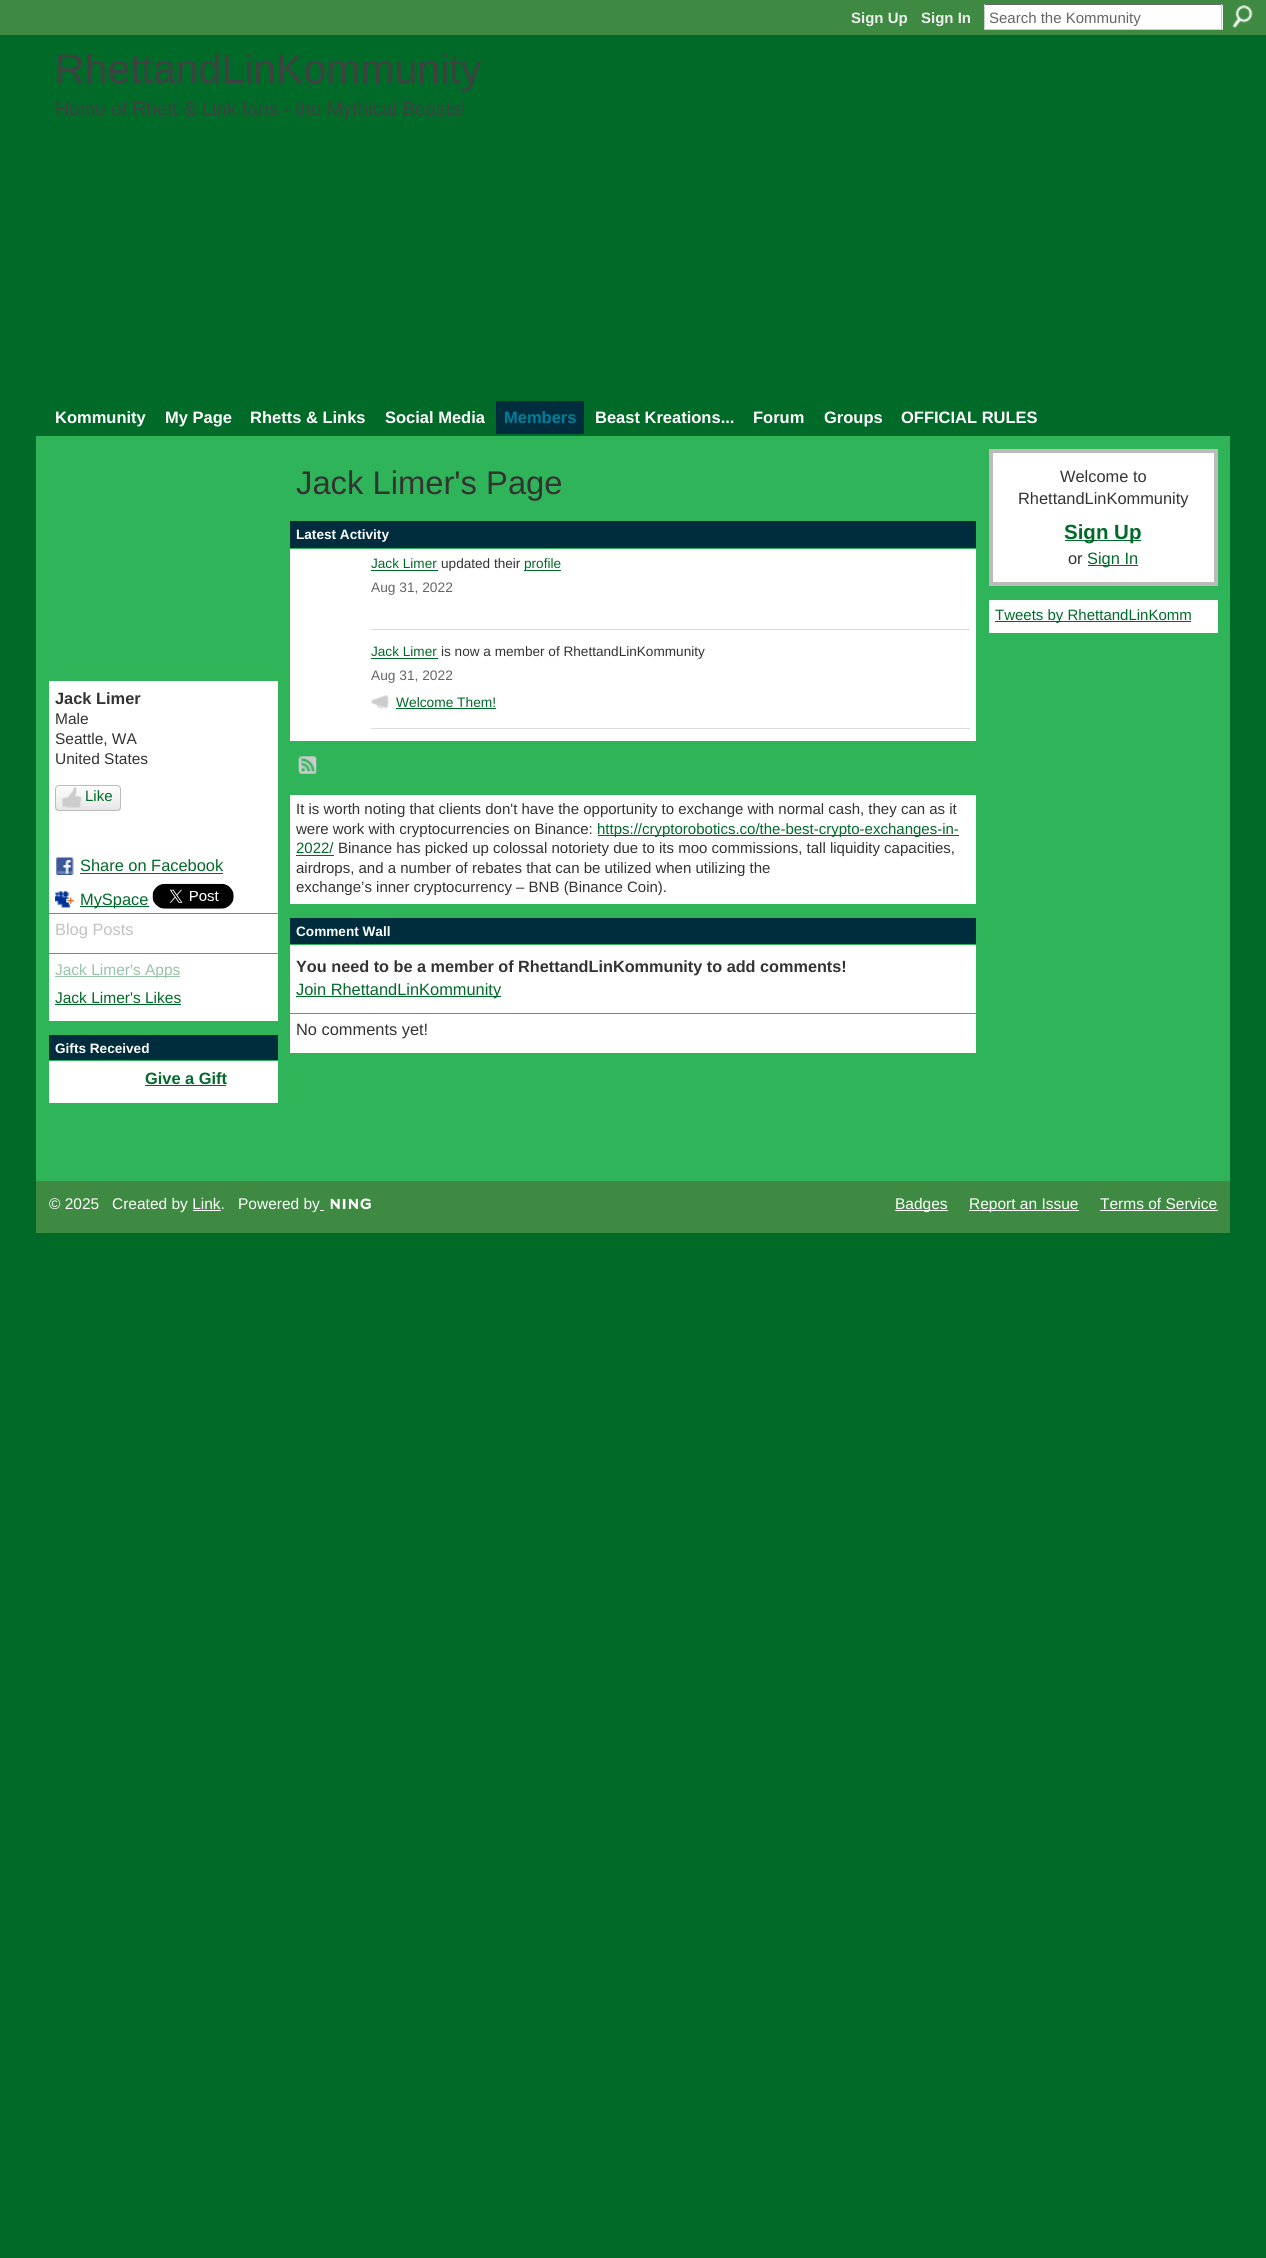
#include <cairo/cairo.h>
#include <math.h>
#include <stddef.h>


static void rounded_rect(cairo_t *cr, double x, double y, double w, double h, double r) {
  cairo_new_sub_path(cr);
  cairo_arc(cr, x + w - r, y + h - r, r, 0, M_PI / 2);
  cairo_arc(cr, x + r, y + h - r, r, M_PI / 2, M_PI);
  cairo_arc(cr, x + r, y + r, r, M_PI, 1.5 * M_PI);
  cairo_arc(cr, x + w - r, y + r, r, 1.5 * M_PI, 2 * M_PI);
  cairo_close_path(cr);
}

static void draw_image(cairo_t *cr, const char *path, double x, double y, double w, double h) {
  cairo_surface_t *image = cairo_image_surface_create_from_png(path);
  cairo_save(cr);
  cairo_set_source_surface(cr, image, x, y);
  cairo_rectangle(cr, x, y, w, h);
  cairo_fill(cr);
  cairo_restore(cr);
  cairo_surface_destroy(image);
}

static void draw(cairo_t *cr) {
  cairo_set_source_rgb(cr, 0, 106 / 255.0, 40 / 255.0);
  cairo_paint(cr);
  cairo_set_source_rgb(cr, 62 / 255.0, 138 / 255.0, 66 / 255.0);
  cairo_rectangle(cr, 0, 0, 1266, 35);
  cairo_fill(cr);
  cairo_set_source_rgb(cr, 1, 1, 1);
  cairo_rectangle(cr, 985, 5, 238, 24);
  cairo_fill(cr);
  cairo_set_source_rgb(cr, 102 / 255.0, 102 / 255.0, 102 / 255.0);
  cairo_rectangle(cr, 984, 4, 239, 1);
  cairo_fill(cr);
  cairo_set_source_rgb(cr, 204 / 255.0, 204 / 255.0, 204 / 255.0);
  cairo_rectangle(cr, 1221, 4, 1, 26);
  cairo_fill(cr);
  cairo_rectangle(cr, 984, 29, 239, 1);
  cairo_fill(cr);
  cairo_rectangle(cr, 984, 4, 1, 26);
  cairo_fill(cr);
  draw_image(cr, "images/1.png", 1232, 5, 21, 23);
  cairo_set_source_rgb(cr, 0, 45 / 255.0, 61 / 255.0);
  cairo_rectangle(cr, 496, 401, 88, 33);
  cairo_fill(cr);
  cairo_set_source_rgb(cr, 47 / 255.0, 180 / 255.0, 89 / 255.0);
  cairo_rectangle(cr, 36, 436, 1194, 745);
  cairo_fill(cr);
  cairo_set_source_rgb(cr, 1, 1, 1);
  cairo_rectangle(cr, 49, 681, 229, 232);
  cairo_fill(cr);
  draw_image(cr, "images/2.png", 55, 787, 66, 24);
  rounded_rect(cr, 55.5, 785.5, 65, 25, 3.5);
  cairo_set_source_rgb(cr, 187 / 255.0, 187 / 255.0, 187 / 255.0);
  cairo_set_line_width(cr, 1);
  cairo_stroke(cr);
  draw_image(cr, "images/3.png", 62, 787, 20, 21);
  draw_image(cr, "images/4.png", 56, 857, 18, 18);
  cairo_set_source_rgb(cr, 0, 106 / 255.0, 40 / 255.0);
  cairo_rectangle(cr, 80, 873, 143, 1);
  cairo_fill(cr);
  draw_image(cr, "images/5.png", 55, 891, 19, 17);
  cairo_rectangle(cr, 80, 906, 69, 1);
  cairo_fill(cr);
  draw_image(cr, "images/6.png", 152, 883, 82, 26);
  cairo_set_source_rgb(cr, 1, 1, 1);
  cairo_rectangle(cr, 49, 914, 229, 39);
  cairo_fill(cr);
  cairo_rectangle(cr, 49, 954, 229, 67);
  cairo_fill(cr);
  cairo_set_source_rgb(cr, 153 / 255.0, 195 / 255.0, 169 / 255.0);
  cairo_rectangle(cr, 55, 976, 125, 1);
  cairo_fill(cr);
  cairo_set_source_rgb(cr, 0, 106 / 255.0, 40 / 255.0);
  cairo_rectangle(cr, 55, 1004, 126, 1);
  cairo_fill(cr);
  cairo_set_source_rgb(cr, 0, 45 / 255.0, 61 / 255.0);
  cairo_rectangle(cr, 49, 1035, 229, 25);
  cairo_fill(cr);
  cairo_set_source_rgb(cr, 1, 1, 1);
  cairo_rectangle(cr, 49, 1061, 229, 42);
  cairo_fill(cr);
  cairo_set_source_rgb(cr, 0, 106 / 255.0, 40 / 255.0);
  cairo_rectangle(cr, 145, 1085, 81, 1);
  cairo_fill(cr);
  cairo_set_source_rgb(cr, 0, 45 / 255.0, 61 / 255.0);
  cairo_rectangle(cr, 290, 521, 686, 27);
  cairo_fill(cr);
  cairo_set_source_rgb(cr, 1, 1, 1);
  cairo_rectangle(cr, 290, 549, 686, 192);
  cairo_fill(cr);
  cairo_set_source_rgb(cr, 221 / 255.0, 221 / 255.0, 221 / 255.0);
  cairo_rectangle(cr, 371, 629, 599, 1);
  cairo_fill(cr);
  cairo_set_source_rgb(cr, 0, 106 / 255.0, 40 / 255.0);
  cairo_rectangle(cr, 371, 570, 67, 1);
  cairo_fill(cr);
  cairo_rectangle(cr, 524, 570, 37, 1);
  cairo_fill(cr);
  cairo_set_source_rgb(cr, 221 / 255.0, 221 / 255.0, 221 / 255.0);
  cairo_rectangle(cr, 371, 728, 599, 1);
  cairo_fill(cr);
  cairo_set_source_rgb(cr, 0, 106 / 255.0, 40 / 255.0);
  cairo_rectangle(cr, 371, 658, 67, 1);
  cairo_fill(cr);
  draw_image(cr, "images/7.png", 371, 695, 18, 14);
  cairo_rectangle(cr, 396, 708, 100, 1);
  cairo_fill(cr);
  draw_image(cr, "images/8.png", 298, 756, 19, 18);
  cairo_set_source_rgb(cr, 1, 1, 1);
  cairo_rectangle(cr, 290, 795, 686, 109);
  cairo_fill(cr);
  cairo_set_source_rgb(cr, 0, 106 / 255.0, 40 / 255.0);
  cairo_rectangle(cr, 598, 835, 361, 1);
  cairo_fill(cr);
  cairo_rectangle(cr, 296, 855, 38, 1);
  cairo_fill(cr);
  cairo_set_source_rgb(cr, 0, 45 / 255.0, 61 / 255.0);
  cairo_rectangle(cr, 290, 918, 686, 26);
  cairo_fill(cr);
  cairo_set_source_rgb(cr, 1, 1, 1);
  cairo_rectangle(cr, 290, 945, 686, 68);
  cairo_fill(cr);
  cairo_set_source_rgb(cr, 0, 106 / 255.0, 40 / 255.0);
  cairo_rectangle(cr, 296, 996, 205, 1);
  cairo_fill(cr);
  cairo_set_source_rgb(cr, 1, 1, 1);
  cairo_rectangle(cr, 290, 1014, 686, 39);
  cairo_fill(cr);
  cairo_rectangle(cr, 991, 451, 225, 133);
  cairo_fill_preserve(cr);
  cairo_set_source_rgb(cr, 187 / 255.0, 187 / 255.0, 187 / 255.0);
  cairo_set_line_width(cr, 4);
  cairo_stroke(cr);
  cairo_set_source_rgb(cr, 0, 106 / 255.0, 40 / 255.0);
  cairo_rectangle(cr, 1065, 540, 76, 1);
  cairo_fill(cr);
  cairo_rectangle(cr, 1088, 565, 50, 1);
  cairo_fill(cr);
  cairo_set_source_rgb(cr, 1, 1, 1);
  cairo_rectangle(cr, 989, 600, 229, 33);
  cairo_fill(cr);
  cairo_set_source_rgb(cr, 0, 106 / 255.0, 40 / 255.0);
  cairo_rectangle(cr, 995, 621, 196, 1);
  cairo_fill(cr);
  cairo_set_source_rgb(cr, 62 / 255.0, 138 / 255.0, 66 / 255.0);
  cairo_rectangle(cr, 36, 1181, 1194, 52);
  cairo_fill(cr);
  draw_image(cr, "images/9.png", 330, 1198, 41, 12);
  cairo_set_source_rgb(cr, 1, 1, 1);
  cairo_rectangle(cr, 193, 1210, 28, 1);
  cairo_fill(cr);
  cairo_rectangle(cr, 320, 1210, 4, 1);
  cairo_fill(cr);
  cairo_rectangle(cr, 895, 1210, 53, 1);
  cairo_fill(cr);
  cairo_rectangle(cr, 969, 1210, 110, 1);
  cairo_fill(cr);
  cairo_rectangle(cr, 1100, 1210, 118, 1);
  cairo_fill(cr);
  cairo_select_font_face(cr, "Liberation Sans", CAIRO_FONT_SLANT_NORMAL, CAIRO_FONT_WEIGHT_BOLD);
  cairo_set_font_size(cr, 15);
  cairo_set_source_rgb(cr, 238 / 255.0, 238 / 255.0, 238 / 255.0);
  cairo_move_to(cr, 851, 23);
  cairo_show_text(cr, "Sign Up");
  cairo_move_to(cr, 921, 23);
  cairo_show_text(cr, "Sign In");
  cairo_select_font_face(cr, "Liberation Sans", CAIRO_FONT_SLANT_NORMAL, CAIRO_FONT_WEIGHT_NORMAL);
  cairo_set_source_rgb(cr, 102 / 255.0, 102 / 255.0, 102 / 255.0);
  cairo_move_to(cr, 989, 23);
  cairo_show_text(cr, "Search the Kommunity");
  cairo_set_font_size(cr, 41);
  cairo_set_source_rgb(cr, 63 / 255.0, 64 / 255.0, 66 / 255.0);
  cairo_move_to(cr, 55, 83);
  cairo_show_text(cr, "RhettandLinKommunity");
  cairo_set_font_size(cr, 19.1);
  cairo_move_to(cr, 55, 115);
  cairo_show_text(cr, "Home of Rhett & Link fans - the Mythical Beasts!");
  cairo_select_font_face(cr, "Liberation Sans", CAIRO_FONT_SLANT_NORMAL, CAIRO_FONT_WEIGHT_BOLD);
  cairo_set_font_size(cr, 16.5);
  cairo_set_source_rgb(cr, 1, 1, 1);
  cairo_move_to(cr, 55, 423);
  cairo_show_text(cr, "Kommunity");
  cairo_move_to(cr, 165, 423);
  cairo_show_text(cr, "My Page");
  cairo_move_to(cr, 250, 423);
  cairo_show_text(cr, "Rhetts & Links");
  cairo_move_to(cr, 385, 423);
  cairo_show_text(cr, "Social Media");
  cairo_set_source_rgb(cr, 0, 127 / 255.0, 156 / 255.0);
  cairo_move_to(cr, 504, 423);
  cairo_show_text(cr, "Members");
  cairo_set_source_rgb(cr, 1, 1, 1);
  cairo_move_to(cr, 595, 423);
  cairo_show_text(cr, "Beast Kreations...");
  cairo_move_to(cr, 753, 423);
  cairo_show_text(cr, "Forum");
  cairo_move_to(cr, 824, 423);
  cairo_show_text(cr, "Groups");
  cairo_move_to(cr, 901, 423);
  cairo_show_text(cr, "OFFICIAL RULES");
  cairo_set_font_size(cr, 16.4);
  cairo_set_source_rgb(cr, 51 / 255.0, 51 / 255.0, 51 / 255.0);
  cairo_move_to(cr, 55, 704);
  cairo_show_text(cr, "Jack Limer");
  cairo_select_font_face(cr, "Liberation Sans", CAIRO_FONT_SLANT_NORMAL, CAIRO_FONT_WEIGHT_NORMAL);
  cairo_set_font_size(cr, 15.5);
  cairo_move_to(cr, 55, 724);
  cairo_show_text(cr, "Male");
  cairo_move_to(cr, 55, 744);
  cairo_show_text(cr, "Seattle, WA");
  cairo_move_to(cr, 55, 764);
  cairo_show_text(cr, "United States");
  cairo_set_font_size(cr, 15);
  cairo_set_source_rgb(cr, 0, 106 / 255.0, 40 / 255.0);
  cairo_move_to(cr, 85, 801);
  cairo_show_text(cr, "Like");
  cairo_set_font_size(cr, 16.4);
  cairo_move_to(cr, 80, 871);
  cairo_show_text(cr, "Share on Facebook");
  cairo_move_to(cr, 80, 905);
  cairo_show_text(cr, "MySpace");
  cairo_set_source_rgb(cr, 194 / 255.0, 194 / 255.0, 194 / 255.0);
  cairo_move_to(cr, 55, 935);
  cairo_show_text(cr, "Blog Posts");
  cairo_set_font_size(cr, 15.5);
  cairo_set_source_rgb(cr, 153 / 255.0, 195 / 255.0, 169 / 255.0);
  cairo_move_to(cr, 55, 975);
  cairo_show_text(cr, "Jack Limer's Apps");
  cairo_set_source_rgb(cr, 0, 106 / 255.0, 40 / 255.0);
  cairo_move_to(cr, 55, 1003);
  cairo_show_text(cr, "Jack Limer's Likes");
  cairo_select_font_face(cr, "Liberation Sans", CAIRO_FONT_SLANT_NORMAL, CAIRO_FONT_WEIGHT_BOLD);
  cairo_set_font_size(cr, 13.6);
  cairo_set_source_rgb(cr, 1, 1, 1);
  cairo_move_to(cr, 55, 1053);
  cairo_show_text(cr, "Gifts Received");
  cairo_set_font_size(cr, 16.4);
  cairo_set_source_rgb(cr, 0, 106 / 255.0, 40 / 255.0);
  cairo_move_to(cr, 145, 1084);
  cairo_show_text(cr, "Give a Gift");
  cairo_select_font_face(cr, "Liberation Sans", CAIRO_FONT_SLANT_NORMAL, CAIRO_FONT_WEIGHT_NORMAL);
  cairo_set_font_size(cr, 32.75);
  cairo_set_source_rgb(cr, 51 / 255.0, 51 / 255.0, 51 / 255.0);
  cairo_move_to(cr, 296, 494);
  cairo_show_text(cr, "Jack Limer's Page");
  cairo_select_font_face(cr, "Liberation Sans", CAIRO_FONT_SLANT_NORMAL, CAIRO_FONT_WEIGHT_BOLD);
  cairo_set_font_size(cr, 13.6);
  cairo_set_source_rgb(cr, 1, 1, 1);
  cairo_move_to(cr, 296, 539);
  cairo_show_text(cr, "Latest Activity");
  cairo_select_font_face(cr, "Liberation Sans", CAIRO_FONT_SLANT_NORMAL, CAIRO_FONT_WEIGHT_NORMAL);
  cairo_set_source_rgb(cr, 0, 106 / 255.0, 40 / 255.0);
  cairo_move_to(cr, 371, 568);
  cairo_show_text(cr, "Jack Limer");
  cairo_set_source_rgb(cr, 51 / 255.0, 51 / 255.0, 51 / 255.0);
  cairo_move_to(cr, 441, 568);
  cairo_show_text(cr, "updated their");
  cairo_set_source_rgb(cr, 0, 106 / 255.0, 40 / 255.0);
  cairo_move_to(cr, 524, 568);
  cairo_show_text(cr, "profile");
  cairo_set_font_size(cr, 13.75);
  cairo_set_source_rgb(cr, 102 / 255.0, 102 / 255.0, 102 / 255.0);
  cairo_move_to(cr, 371, 592);
  cairo_show_text(cr, "Aug 31, 2022");
  cairo_set_font_size(cr, 13.6);
  cairo_set_source_rgb(cr, 0, 106 / 255.0, 40 / 255.0);
  cairo_move_to(cr, 371, 656);
  cairo_show_text(cr, "Jack Limer");
  cairo_set_source_rgb(cr, 51 / 255.0, 51 / 255.0, 51 / 255.0);
  cairo_move_to(cr, 441, 656);
  cairo_show_text(cr, "is now a member of RhettandLinKommunity");
  cairo_set_font_size(cr, 13.75);
  cairo_set_source_rgb(cr, 102 / 255.0, 102 / 255.0, 102 / 255.0);
  cairo_move_to(cr, 371, 680);
  cairo_show_text(cr, "Aug 31, 2022");
  cairo_set_source_rgb(cr, 0, 106 / 255.0, 40 / 255.0);
  cairo_move_to(cr, 396, 707);
  cairo_show_text(cr, "Welcome Them!");
  cairo_set_font_size(cr, 15);
  cairo_set_source_rgb(cr, 51 / 255.0, 51 / 255.0, 51 / 255.0);
  cairo_move_to(cr, 296, 814);
  cairo_show_text(cr, "It is worth noting that clients don't have the opportunity to exchange with normal cash, they can as it");
  cairo_move_to(cr, 296, 834);
  cairo_show_text(cr, "were work with cryptocurrencies on Binance:");
  cairo_set_source_rgb(cr, 0, 106 / 255.0, 40 / 255.0);
  cairo_move_to(cr, 597, 834);
  cairo_show_text(cr, "https://cryptorobotics.co/the-best-crypto-exchanges-in-");
  cairo_move_to(cr, 296, 853);
  cairo_show_text(cr, "2022/");
  cairo_set_source_rgb(cr, 51 / 255.0, 51 / 255.0, 51 / 255.0);
  cairo_move_to(cr, 338, 853);
  cairo_show_text(cr, "Binance has picked up colossal notoriety due to its moo commissions, tall liquidity capacities,");
  cairo_move_to(cr, 296, 873);
  cairo_show_text(cr, "airdrops, and a number of rebates that can be utilized when utilizing the");
  cairo_move_to(cr, 296, 892);
  cairo_show_text(cr, "exchange’s inner cryptocurrency – BNB (Binance Coin).");
  cairo_select_font_face(cr, "Liberation Sans", CAIRO_FONT_SLANT_NORMAL, CAIRO_FONT_WEIGHT_BOLD);
  cairo_set_font_size(cr, 13.6);
  cairo_set_source_rgb(cr, 1, 1, 1);
  cairo_move_to(cr, 296, 936);
  cairo_show_text(cr, "Comment Wall");
  cairo_set_font_size(cr, 16.25);
  cairo_set_source_rgb(cr, 51 / 255.0, 51 / 255.0, 51 / 255.0);
  cairo_move_to(cr, 296, 972);
  cairo_show_text(cr, "You need to be a member of RhettandLinKommunity to add comments!");
  cairo_select_font_face(cr, "Liberation Sans", CAIRO_FONT_SLANT_NORMAL, CAIRO_FONT_WEIGHT_NORMAL);
  cairo_set_font_size(cr, 16.4);
  cairo_set_source_rgb(cr, 0, 106 / 255.0, 40 / 255.0);
  cairo_move_to(cr, 296, 995);
  cairo_show_text(cr, "Join RhettandLinKommunity");
  cairo_set_source_rgb(cr, 51 / 255.0, 51 / 255.0, 51 / 255.0);
  cairo_move_to(cr, 296, 1035);
  cairo_show_text(cr, "No comments yet!");
  cairo_move_to(cr, 1060, 482);
  cairo_show_text(cr, "Welcome to");
  cairo_move_to(cr, 1018, 504);
  cairo_show_text(cr, "RhettandLinKommunity");
  cairo_select_font_face(cr, "Liberation Sans", CAIRO_FONT_SLANT_NORMAL, CAIRO_FONT_WEIGHT_BOLD);
  cairo_set_font_size(cr, 20.5);
  cairo_set_source_rgb(cr, 0, 106 / 255.0, 40 / 255.0);
  cairo_move_to(cr, 1064, 539);
  cairo_show_text(cr, "Sign Up");
  cairo_select_font_face(cr, "Liberation Sans", CAIRO_FONT_SLANT_NORMAL, CAIRO_FONT_WEIGHT_NORMAL);
  cairo_set_font_size(cr, 16.4);
  cairo_set_source_rgb(cr, 51 / 255.0, 51 / 255.0, 51 / 255.0);
  cairo_move_to(cr, 1068, 564);
  cairo_show_text(cr, "or");
  cairo_set_source_rgb(cr, 0, 106 / 255.0, 40 / 255.0);
  cairo_move_to(cr, 1087, 564);
  cairo_show_text(cr, "Sign In");
  cairo_set_font_size(cr, 15);
  cairo_move_to(cr, 995, 620);
  cairo_show_text(cr, "Tweets by RhettandLinKomm");
  cairo_set_font_size(cr, 15.5);
  cairo_set_source_rgb(cr, 1, 1, 1);
  cairo_move_to(cr, 49, 1209);
  cairo_show_text(cr, "© 2025");
  cairo_move_to(cr, 112, 1209);
  cairo_show_text(cr, "Created by Link.");
  cairo_move_to(cr, 238, 1209);
  cairo_show_text(cr, "Powered by");
  cairo_move_to(cr, 895, 1209);
  cairo_show_text(cr, "Badges");
  cairo_move_to(cr, 969, 1209);
  cairo_show_text(cr, "Report an Issue");
  cairo_move_to(cr, 1100, 1209);
  cairo_show_text(cr, "Terms of Service");
}

int main(void) {
  cairo_surface_t *surface = cairo_image_surface_create(CAIRO_FORMAT_RGB24, 1266, 2258);
  cairo_t *cr = cairo_create(surface);
  cairo_font_options_t *options = cairo_font_options_create();
  cairo_font_options_set_hint_metrics(options, CAIRO_HINT_METRICS_OFF);
  cairo_font_options_set_hint_style(options, CAIRO_HINT_STYLE_NONE);
  cairo_set_font_options(cr, options);
  cairo_set_miter_limit(cr, 4);
  draw(cr);
  cairo_surface_write_to_png(surface, "out.png");
  cairo_font_options_destroy(options);
  cairo_destroy(cr);
  cairo_surface_destroy(surface);
  return 0;
}
